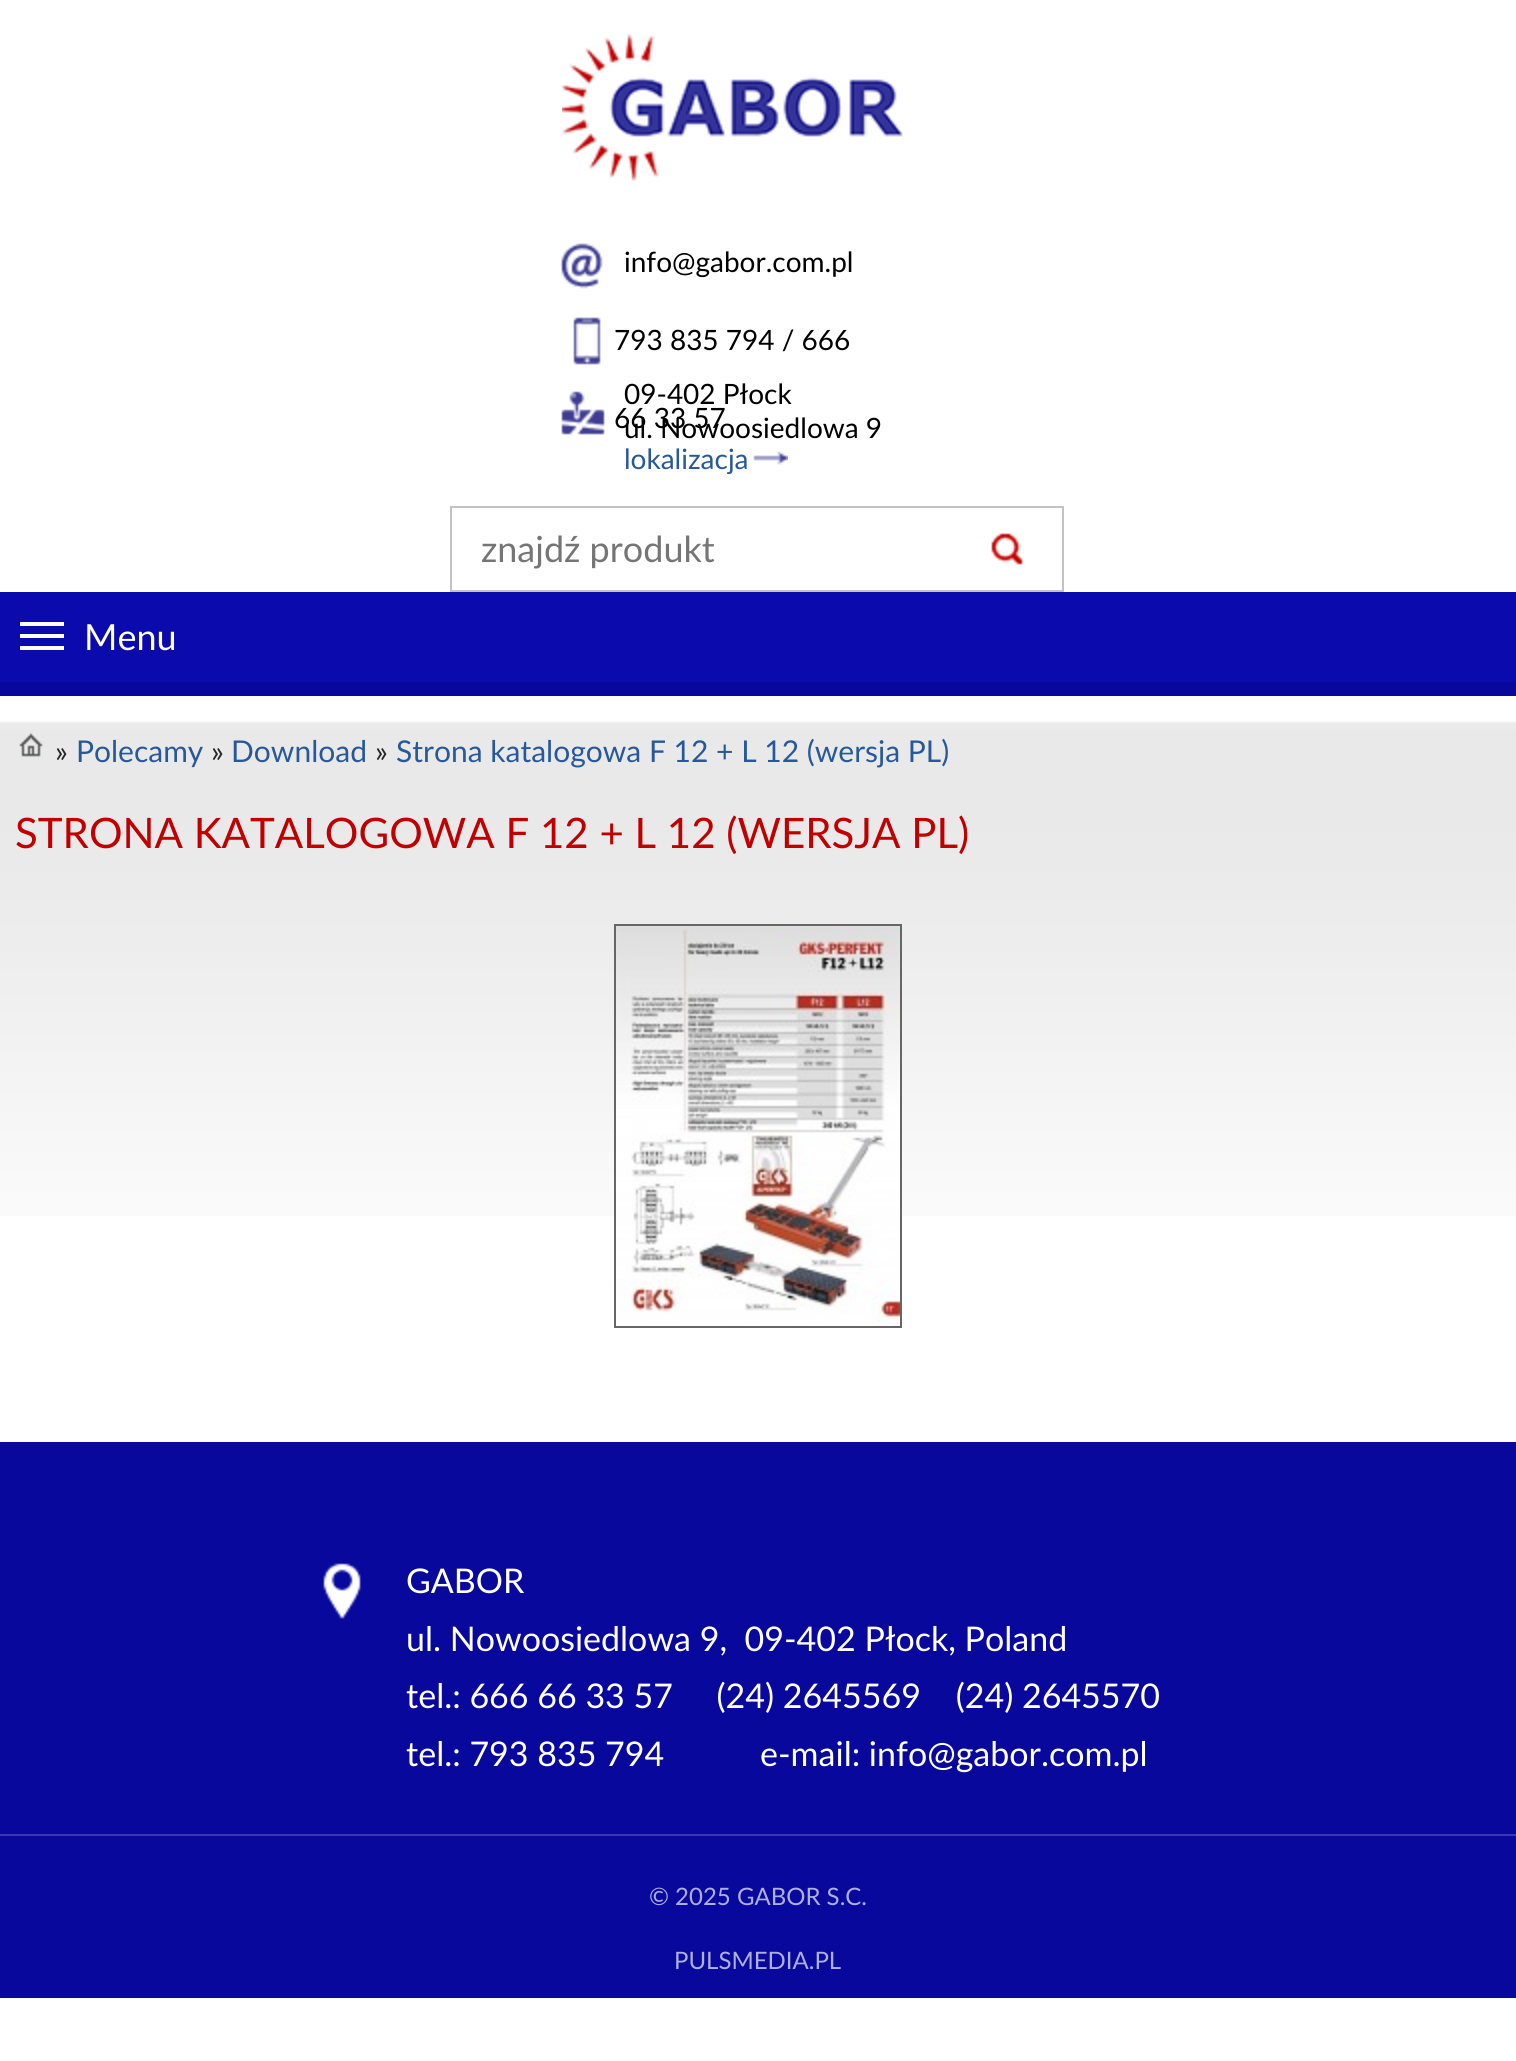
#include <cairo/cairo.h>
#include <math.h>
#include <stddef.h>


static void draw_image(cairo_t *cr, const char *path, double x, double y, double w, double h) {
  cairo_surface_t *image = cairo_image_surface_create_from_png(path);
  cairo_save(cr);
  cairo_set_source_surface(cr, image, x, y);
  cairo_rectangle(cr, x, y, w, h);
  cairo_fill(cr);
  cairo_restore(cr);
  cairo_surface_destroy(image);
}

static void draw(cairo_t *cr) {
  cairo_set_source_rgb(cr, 1, 1, 1);
  cairo_paint(cr);
  draw_image(cr, "images/1.png", 562, 33, 341, 148);
  draw_image(cr, "images/2.png", 560, 243, 43, 46);
  draw_image(cr, "images/3.png", 573, 317, 28, 48);
  draw_image(cr, "images/4.png", 561, 391, 44, 44);
  draw_image(cr, "images/5.png", 753, 451, 35, 14);
  cairo_rectangle(cr, 451, 507, 612, 84);
  cairo_set_source_rgb(cr, 195 / 255.0, 195 / 255.0, 195 / 255.0);
  cairo_stroke(cr);
  draw_image(cr, "images/6.png", 991, 533, 32, 32);
  cairo_set_source_rgb(cr, 8 / 255.0, 8 / 255.0, 157 / 255.0);
  cairo_rectangle(cr, 0, 682, 1516, 14);
  cairo_fill(cr);
  cairo_set_source_rgb(cr, 10 / 255.0, 10 / 255.0, 173 / 255.0);
  cairo_rectangle(cr, 0, 592, 1516, 90);
  cairo_fill(cr);
  cairo_set_source_rgb(cr, 1, 1, 1);
  cairo_rectangle(cr, 20, 622, 44, 4);
  cairo_fill(cr);
  cairo_rectangle(cr, 20, 634, 44, 4);
  cairo_fill(cr);
  cairo_rectangle(cr, 20, 646, 44, 4);
  cairo_fill(cr);
  draw_image(cr, "images/7.png", 0, 721, 1516, 495);
  draw_image(cr, "images/8.png", 19, 733, 24, 24);
  cairo_rectangle(cr, 615, 925, 286, 402);
  cairo_set_source_rgb(cr, 102 / 255.0, 102 / 255.0, 102 / 255.0);
  cairo_stroke(cr);
  draw_image(cr, "images/9.png", 616, 926, 284, 400);
  cairo_set_source_rgb(cr, 8 / 255.0, 8 / 255.0, 157 / 255.0);
  cairo_rectangle(cr, 0, 1442, 1516, 556);
  cairo_fill(cr);
  draw_image(cr, "images/10.png", 323, 1563, 38, 56);
  cairo_set_source_rgb(cr, 57 / 255.0, 56 / 255.0, 181 / 255.0);
  cairo_rectangle(cr, 0, 1834, 1516, 2);
  cairo_fill(cr);
  cairo_select_font_face(cr, "Lato", CAIRO_FONT_SLANT_NORMAL, CAIRO_FONT_WEIGHT_NORMAL);
  cairo_set_font_size(cr, 28);
  cairo_set_source_rgb(cr, 0, 0, 0);
  cairo_move_to(cr, 624, 272);
  cairo_show_text(cr, "info@gabor.com.pl");
  cairo_move_to(cr, 614, 350);
  cairo_show_text(cr, "793 835 794 / 666");
  cairo_move_to(cr, 614, 428);
  cairo_show_text(cr, "66 33 57");
  cairo_move_to(cr, 624, 404);
  cairo_show_text(cr, "09-402 Płock");
  cairo_move_to(cr, 624, 438);
  cairo_show_text(cr, "ul. Nowoosiedlowa 9");
  cairo_set_source_rgb(cr, 39 / 255.0, 88 / 255.0, 153 / 255.0);
  cairo_move_to(cr, 624, 469);
  cairo_show_text(cr, "lokalizacja");
  cairo_set_font_size(cr, 36);
  cairo_set_source_rgb(cr, 117 / 255.0, 117 / 255.0, 117 / 255.0);
  cairo_move_to(cr, 481, 562);
  cairo_show_text(cr, "znajdź produkt");
  cairo_set_source_rgb(cr, 1, 1, 1);
  cairo_move_to(cr, 84, 650);
  cairo_show_text(cr, "Menu");
  cairo_set_font_size(cr, 30);
  cairo_set_source_rgb(cr, 38 / 255.0, 38 / 255.0, 38 / 255.0);
  cairo_move_to(cr, 55, 762);
  cairo_show_text(cr, "»");
  cairo_set_source_rgb(cr, 39 / 255.0, 88 / 255.0, 153 / 255.0);
  cairo_move_to(cr, 76, 762);
  cairo_show_text(cr, "Polecamy");
  cairo_set_source_rgb(cr, 38 / 255.0, 38 / 255.0, 38 / 255.0);
  cairo_move_to(cr, 211, 762);
  cairo_show_text(cr, "»");
  cairo_set_source_rgb(cr, 39 / 255.0, 88 / 255.0, 153 / 255.0);
  cairo_move_to(cr, 231, 762);
  cairo_show_text(cr, "Download");
  cairo_set_source_rgb(cr, 38 / 255.0, 38 / 255.0, 38 / 255.0);
  cairo_move_to(cr, 375, 762);
  cairo_show_text(cr, "»");
  cairo_set_source_rgb(cr, 39 / 255.0, 88 / 255.0, 153 / 255.0);
  cairo_move_to(cr, 396, 762);
  cairo_show_text(cr, "Strona katalogowa F 12 + L 12 (wersja PL)");
  cairo_set_font_size(cr, 42);
  cairo_set_source_rgb(cr, 192 / 255.0, 0, 0);
  cairo_move_to(cr, 15, 848);
  cairo_show_text(cr, "STRONA KATALOGOWA F 12 + L 12 (WERSJA PL)");
  cairo_set_font_size(cr, 34);
  cairo_set_source_rgb(cr, 1, 1, 1);
  cairo_move_to(cr, 406, 1593);
  cairo_show_text(cr, "GABOR");
  cairo_move_to(cr, 406, 1651);
  cairo_show_text(cr, "ul. Nowoosiedlowa 9,  09-402 Płock, Poland");
  cairo_move_to(cr, 406, 1708);
  cairo_show_text(cr, "tel.: 666 66 33 57     (24) 2645569    (24) 2645570");
  cairo_move_to(cr, 406, 1766);
  cairo_show_text(cr, "tel.: 793 835 794           e-mail: info@gabor.com.pl");
  cairo_set_font_size(cr, 24);
  cairo_set_source_rgb(cr, 174 / 255.0, 174 / 255.0, 223 / 255.0);
  cairo_move_to(cr, 649, 1905);
  cairo_show_text(cr, "© 2025 GABOR S.C.");
  cairo_move_to(cr, 674, 1969);
  cairo_show_text(cr, "PULSMEDIA.PL");
}

int main(void) {
  cairo_surface_t *surface = cairo_image_surface_create(CAIRO_FORMAT_RGB24, 1516, 2061);
  cairo_t *cr = cairo_create(surface);
  cairo_font_options_t *options = cairo_font_options_create();
  cairo_font_options_set_hint_metrics(options, CAIRO_HINT_METRICS_OFF);
  cairo_font_options_set_hint_style(options, CAIRO_HINT_STYLE_NONE);
  cairo_set_font_options(cr, options);
  cairo_set_miter_limit(cr, 4);
  draw(cr);
  cairo_surface_write_to_png(surface, "out.png");
  cairo_font_options_destroy(options);
  cairo_destroy(cr);
  cairo_surface_destroy(surface);
  return 0;
}
